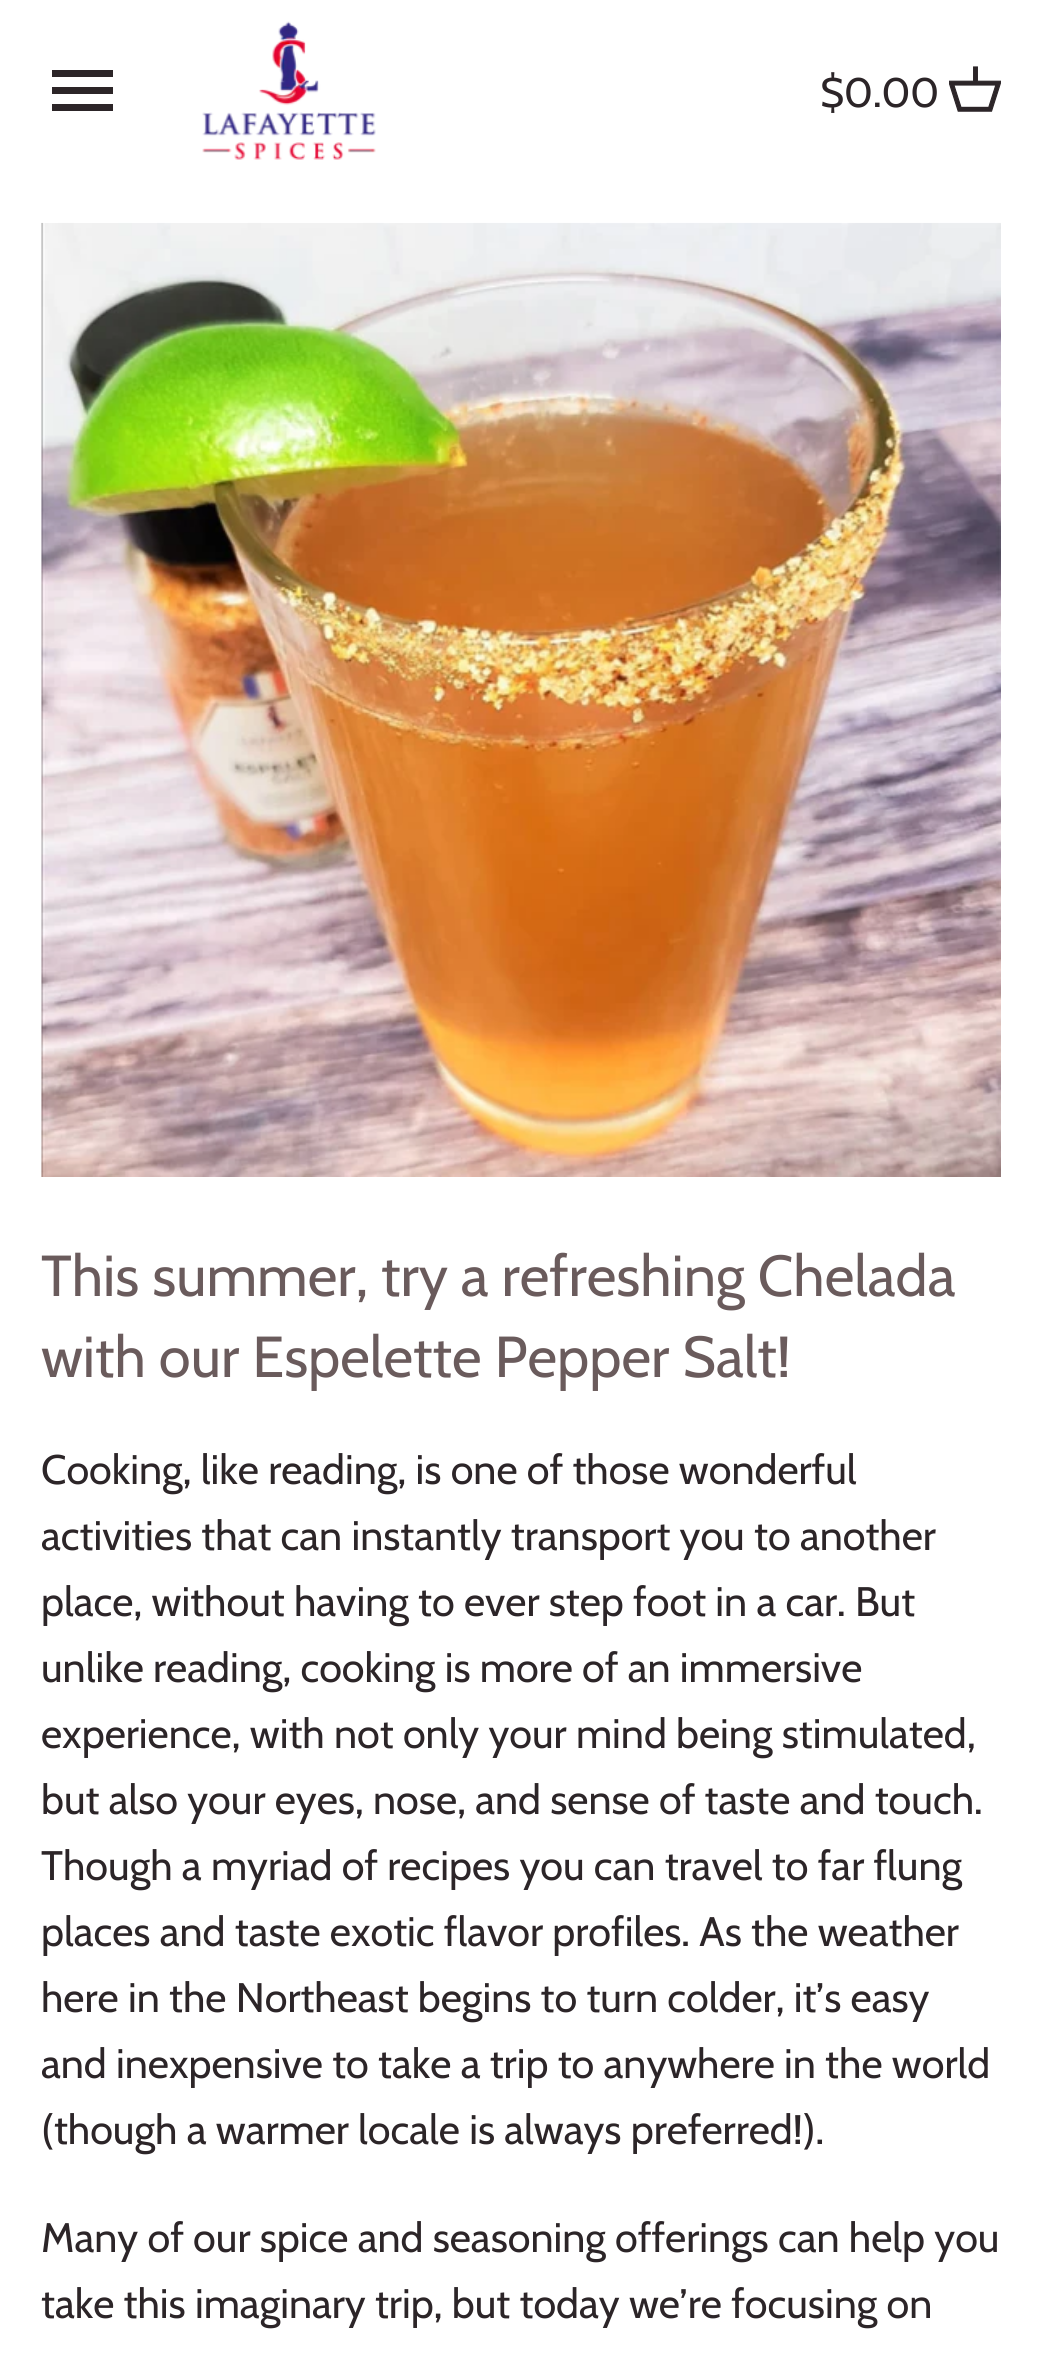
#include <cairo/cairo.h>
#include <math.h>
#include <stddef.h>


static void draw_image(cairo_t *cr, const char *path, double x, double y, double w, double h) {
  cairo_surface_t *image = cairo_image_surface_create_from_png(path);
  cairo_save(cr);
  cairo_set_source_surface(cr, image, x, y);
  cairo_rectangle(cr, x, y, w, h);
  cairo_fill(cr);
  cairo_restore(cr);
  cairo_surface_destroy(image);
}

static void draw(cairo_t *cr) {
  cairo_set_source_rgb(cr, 1, 1, 1);
  cairo_paint(cr);
  cairo_set_source_rgb(cr, 44 / 255.0, 37 / 255.0, 40 / 255.0);
  cairo_new_path(cr);
  cairo_move_to(cr, 52, 111);
  cairo_line_to(cr, 113, 111);
  cairo_line_to(cr, 113, 104);
  cairo_line_to(cr, 52, 104);
  cairo_close_path(cr);
  cairo_move_to(cr, 52, 94);
  cairo_line_to(cr, 113, 94);
  cairo_line_to(cr, 113, 87);
  cairo_line_to(cr, 52, 87);
  cairo_close_path(cr);
  cairo_move_to(cr, 52, 70);
  cairo_line_to(cr, 52, 77);
  cairo_line_to(cr, 113, 77);
  cairo_line_to(cr, 113, 70);
  cairo_close_path(cr);
  cairo_fill(cr);
  draw_image(cr, "images/1.png", 202, 21, 174, 139);
  draw_image(cr, "images/2.png", 949, 66, 52, 46);
  draw_image(cr, "images/3.png", 41, 222, 960, 955);
  cairo_select_font_face(cr, "Cabin", CAIRO_FONT_SLANT_NORMAL, CAIRO_FONT_WEIGHT_NORMAL);
  cairo_set_font_size(cr, 41.25);
  cairo_move_to(cr, 820, 107);
  cairo_show_text(cr, "$0.00");
  cairo_set_font_size(cr, 57.75);
  cairo_set_source_rgb(cr, 106 / 255.0, 91 / 255.0, 92 / 255.0);
  cairo_move_to(cr, 41, 1296);
  cairo_show_text(cr, "This summer, try a refreshing Chelada");
  cairo_move_to(cr, 41, 1377);
  cairo_show_text(cr, "with our Espelette Pepper Salt!");
  cairo_set_font_size(cr, 41.25);
  cairo_set_source_rgb(cr, 44 / 255.0, 37 / 255.0, 40 / 255.0);
  cairo_move_to(cr, 41, 1484);
  cairo_show_text(cr, "Cooking, like reading, is one of those wonderful");
  cairo_move_to(cr, 41, 1550);
  cairo_show_text(cr, "activities that can instantly transport you to another");
  cairo_move_to(cr, 41, 1616);
  cairo_show_text(cr, "place, without having to ever step foot in a car. But");
  cairo_move_to(cr, 41, 1682);
  cairo_show_text(cr, "unlike reading, cooking is more of an immersive");
  cairo_move_to(cr, 41, 1748);
  cairo_show_text(cr, "experience, with not only your mind being stimulated,");
  cairo_move_to(cr, 41, 1814);
  cairo_show_text(cr, "but also your eyes, nose, and sense of taste and touch.");
  cairo_move_to(cr, 41, 1880);
  cairo_show_text(cr, "Though a myriad of recipes you can travel to far flung");
  cairo_move_to(cr, 41, 1946);
  cairo_show_text(cr, "places and taste exotic flavor profiles. As the weather");
  cairo_move_to(cr, 41, 2012);
  cairo_show_text(cr, "here in the Northeast begins to turn colder, it’s easy");
  cairo_move_to(cr, 41, 2078);
  cairo_show_text(cr, "and inexpensive to take a trip to anywhere in the world");
  cairo_move_to(cr, 41, 2144);
  cairo_show_text(cr, "(though a warmer locale is always preferred!).");
  cairo_move_to(cr, 41, 2252);
  cairo_show_text(cr, "Many of our spice and seasoning offerings can help you");
  cairo_move_to(cr, 41, 2318);
  cairo_show_text(cr, "take this imaginary trip, but today we’re focusing on");
}

int main(void) {
  cairo_surface_t *surface = cairo_image_surface_create(CAIRO_FORMAT_RGB24, 1041, 2357);
  cairo_t *cr = cairo_create(surface);
  cairo_font_options_t *options = cairo_font_options_create();
  cairo_font_options_set_hint_metrics(options, CAIRO_HINT_METRICS_OFF);
  cairo_font_options_set_hint_style(options, CAIRO_HINT_STYLE_NONE);
  cairo_set_font_options(cr, options);
  cairo_set_miter_limit(cr, 4);
  draw(cr);
  cairo_surface_write_to_png(surface, "out.png");
  cairo_font_options_destroy(options);
  cairo_destroy(cr);
  cairo_surface_destroy(surface);
  return 0;
}
